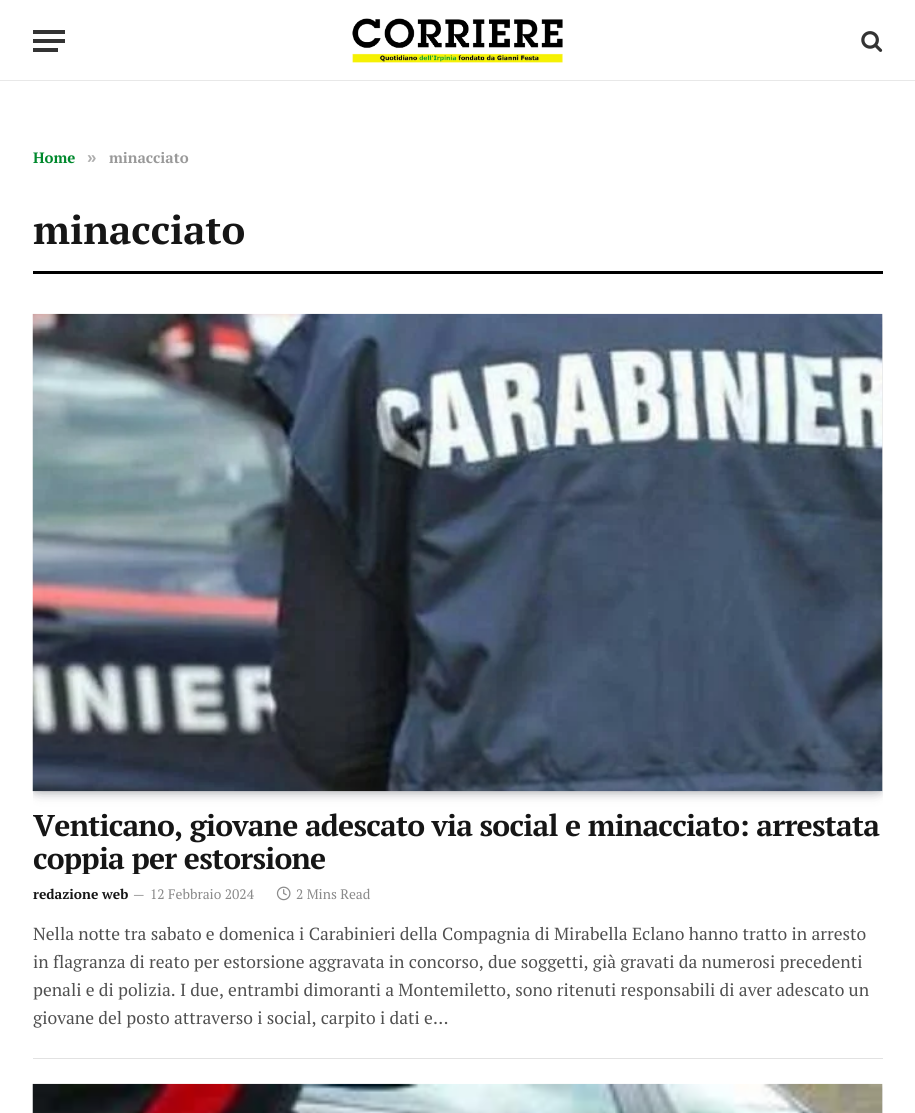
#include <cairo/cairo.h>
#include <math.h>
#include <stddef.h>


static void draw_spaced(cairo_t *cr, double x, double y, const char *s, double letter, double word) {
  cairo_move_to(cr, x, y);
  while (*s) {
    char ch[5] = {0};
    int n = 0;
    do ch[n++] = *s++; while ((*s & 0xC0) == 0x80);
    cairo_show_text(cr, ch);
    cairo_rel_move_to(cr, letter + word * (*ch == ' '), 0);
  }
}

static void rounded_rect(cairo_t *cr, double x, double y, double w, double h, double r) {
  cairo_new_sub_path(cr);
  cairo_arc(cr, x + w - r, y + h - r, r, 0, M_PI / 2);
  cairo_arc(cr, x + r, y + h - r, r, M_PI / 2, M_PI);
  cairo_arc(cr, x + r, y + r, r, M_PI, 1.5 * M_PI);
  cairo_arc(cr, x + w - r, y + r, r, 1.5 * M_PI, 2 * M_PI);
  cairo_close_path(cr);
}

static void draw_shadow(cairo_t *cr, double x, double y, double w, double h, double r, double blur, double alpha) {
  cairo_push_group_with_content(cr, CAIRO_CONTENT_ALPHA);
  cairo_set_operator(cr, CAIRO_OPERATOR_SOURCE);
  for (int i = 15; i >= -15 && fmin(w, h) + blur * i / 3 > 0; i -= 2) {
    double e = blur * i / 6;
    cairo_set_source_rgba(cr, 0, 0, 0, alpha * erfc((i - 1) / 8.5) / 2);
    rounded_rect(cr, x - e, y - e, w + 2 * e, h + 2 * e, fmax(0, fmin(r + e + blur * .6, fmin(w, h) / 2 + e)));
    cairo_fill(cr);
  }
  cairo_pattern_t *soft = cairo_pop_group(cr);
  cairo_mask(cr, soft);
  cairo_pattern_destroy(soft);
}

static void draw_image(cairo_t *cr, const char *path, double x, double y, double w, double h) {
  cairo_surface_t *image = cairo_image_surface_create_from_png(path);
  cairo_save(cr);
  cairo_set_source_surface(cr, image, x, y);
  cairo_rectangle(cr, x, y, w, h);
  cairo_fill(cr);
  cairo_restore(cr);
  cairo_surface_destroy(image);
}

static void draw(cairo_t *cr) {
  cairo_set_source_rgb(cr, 1, 1, 1);
  cairo_paint(cr);
  cairo_set_source_rgb(cr, 232 / 255.0, 232 / 255.0, 232 / 255.0);
  cairo_rectangle(cr, 0, 80, 915, 1);
  cairo_fill(cr);
  cairo_set_source_rgb(cr, 51 / 255.0, 51 / 255.0, 51 / 255.0);
  cairo_rectangle(cr, 33, 48, 25, 4);
  cairo_fill(cr);
  cairo_rectangle(cr, 33, 30, 32, 4);
  cairo_fill(cr);
  cairo_rectangle(cr, 33, 39, 32, 4);
  cairo_fill(cr);
  draw_image(cr, "images/1.png", 352, 18, 211, 45);
  draw_image(cr, "images/2.png", 861, 31, 22, 21);
  cairo_set_source_rgb(cr, 0, 0, 0);
  cairo_rectangle(cr, 33, 271, 850, 3);
  cairo_fill(cr);
  cairo_save(cr);
  cairo_rectangle(cr, 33, 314, 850, 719);
  cairo_clip(cr);
  cairo_set_source_rgb(cr, 7 / 255.0, 10 / 255.0, 25 / 255.0);
  draw_shadow(cr, 40, 329, 835, 462, 0, 7.5, 0.2);
  draw_shadow(cr, 34, 318, 847, 475, 0, 4, 0.2);
  cairo_restore(cr);
  draw_image(cr, "images/3.png", 32, 313, 851, 479);
  draw_image(cr, "images/4.png", 276, 886, 15, 15);
  cairo_set_source_rgb(cr, 226 / 255.0, 226 / 255.0, 226 / 255.0);
  cairo_rectangle(cr, 33, 1058, 850, 1);
  cairo_fill(cr);
  cairo_save(cr);
  cairo_rectangle(cr, 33, 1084, 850, 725);
  cairo_clip(cr);
  cairo_set_source_rgb(cr, 7 / 255.0, 10 / 255.0, 25 / 255.0);
  draw_shadow(cr, 34, 1088, 847, 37, 0, 4, 0.2);
  cairo_restore(cr);
  draw_image(cr, "images/5.png", 32, 1083, 851, 30);
  cairo_select_font_face(cr, "PT Serif", CAIRO_FONT_SLANT_NORMAL, CAIRO_FONT_WEIGHT_BOLD);
  cairo_set_font_size(cr, 15);
  cairo_set_source_rgb(cr, 0, 137 / 255.0, 45 / 255.0);
  cairo_move_to(cr, 33, 163);
  cairo_show_text(cr, "Home");
  cairo_select_font_face(cr, "Liberation Sans", CAIRO_FONT_SLANT_NORMAL, CAIRO_FONT_WEIGHT_BOLD);
  cairo_set_font_size(cr, 17);
  cairo_set_source_rgb(cr, 173 / 255.0, 173 / 255.0, 173 / 255.0);
  cairo_move_to(cr, 87, 163);
  cairo_show_text(cr, "»");
  cairo_select_font_face(cr, "PT Serif", CAIRO_FONT_SLANT_NORMAL, CAIRO_FONT_WEIGHT_BOLD);
  cairo_set_font_size(cr, 15);
  cairo_set_source_rgb(cr, 153 / 255.0, 153 / 255.0, 153 / 255.0);
  cairo_move_to(cr, 109, 163);
  cairo_show_text(cr, "minacciato");
  cairo_set_font_size(cr, 40);
  cairo_set_source_rgb(cr, 22 / 255.0, 22 / 255.0, 22 / 255.0);
  cairo_move_to(cr, 33, 244);
  cairo_show_text(cr, "minacciato");
  cairo_set_font_size(cr, 30);
  draw_spaced(cr, 33, 836, "Venticano, giovane adescato via social e minacciato: arrestata", -0.75, 0);
  cairo_save(cr);
  cairo_rectangle(cr, 33, 808, 850, 66);
  cairo_clip(cr);
  draw_spaced(cr, 33, 869, "coppia per estorsione", -0.75, 0);
  cairo_restore(cr);
  cairo_set_font_size(cr, 13.75);
  cairo_move_to(cr, 33, 899);
  cairo_show_text(cr, "redazione web");
  cairo_select_font_face(cr, "PT Serif", CAIRO_FONT_SLANT_NORMAL, CAIRO_FONT_WEIGHT_NORMAL);
  cairo_set_font_size(cr, 13);
  cairo_set_source_rgb(cr, 138 / 255.0, 138 / 255.0, 138 / 255.0);
  cairo_move_to(cr, 133, 899);
  cairo_show_text(cr, "—");
  cairo_set_font_size(cr, 13.75);
  cairo_move_to(cr, 150, 899);
  cairo_show_text(cr, "12 Febbraio 2024");
  cairo_move_to(cr, 296, 899);
  cairo_show_text(cr, "2 Mins Read");
  cairo_set_font_size(cr, 17.5);
  cairo_set_source_rgb(cr, 80 / 255.0, 80 / 255.0, 80 / 255.0);
  cairo_move_to(cr, 33, 940);
  cairo_show_text(cr, "Nella notte tra sabato e domenica i Carabinieri della Compagnia di Mirabella Eclano hanno tratto in arresto");
  cairo_move_to(cr, 33, 968);
  cairo_show_text(cr, "in flagranza di reato per estorsione aggravata in concorso, due soggetti, già gravati da numerosi precedenti");
  cairo_move_to(cr, 33, 996);
  cairo_show_text(cr, "penali e di polizia. I due, entrambi dimoranti a Montemiletto, sono ritenuti responsabili di aver adescato un");
  cairo_move_to(cr, 33, 1024);
  cairo_show_text(cr, "giovane del posto attraverso i social, carpito i dati e…");
}

int main(void) {
  cairo_surface_t *surface = cairo_image_surface_create(CAIRO_FORMAT_RGB24, 915, 1113);
  cairo_t *cr = cairo_create(surface);
  cairo_font_options_t *options = cairo_font_options_create();
  cairo_font_options_set_hint_metrics(options, CAIRO_HINT_METRICS_OFF);
  cairo_font_options_set_hint_style(options, CAIRO_HINT_STYLE_NONE);
  cairo_set_font_options(cr, options);
  cairo_set_miter_limit(cr, 4);
  draw(cr);
  cairo_surface_write_to_png(surface, "out.png");
  cairo_font_options_destroy(options);
  cairo_destroy(cr);
  cairo_surface_destroy(surface);
  return 0;
}
